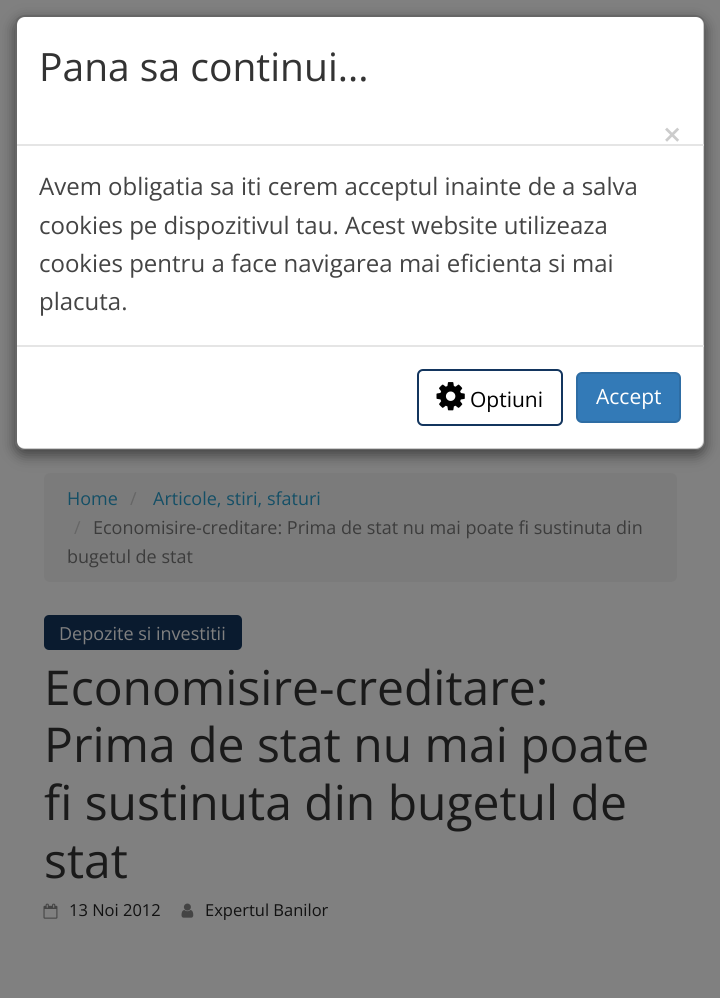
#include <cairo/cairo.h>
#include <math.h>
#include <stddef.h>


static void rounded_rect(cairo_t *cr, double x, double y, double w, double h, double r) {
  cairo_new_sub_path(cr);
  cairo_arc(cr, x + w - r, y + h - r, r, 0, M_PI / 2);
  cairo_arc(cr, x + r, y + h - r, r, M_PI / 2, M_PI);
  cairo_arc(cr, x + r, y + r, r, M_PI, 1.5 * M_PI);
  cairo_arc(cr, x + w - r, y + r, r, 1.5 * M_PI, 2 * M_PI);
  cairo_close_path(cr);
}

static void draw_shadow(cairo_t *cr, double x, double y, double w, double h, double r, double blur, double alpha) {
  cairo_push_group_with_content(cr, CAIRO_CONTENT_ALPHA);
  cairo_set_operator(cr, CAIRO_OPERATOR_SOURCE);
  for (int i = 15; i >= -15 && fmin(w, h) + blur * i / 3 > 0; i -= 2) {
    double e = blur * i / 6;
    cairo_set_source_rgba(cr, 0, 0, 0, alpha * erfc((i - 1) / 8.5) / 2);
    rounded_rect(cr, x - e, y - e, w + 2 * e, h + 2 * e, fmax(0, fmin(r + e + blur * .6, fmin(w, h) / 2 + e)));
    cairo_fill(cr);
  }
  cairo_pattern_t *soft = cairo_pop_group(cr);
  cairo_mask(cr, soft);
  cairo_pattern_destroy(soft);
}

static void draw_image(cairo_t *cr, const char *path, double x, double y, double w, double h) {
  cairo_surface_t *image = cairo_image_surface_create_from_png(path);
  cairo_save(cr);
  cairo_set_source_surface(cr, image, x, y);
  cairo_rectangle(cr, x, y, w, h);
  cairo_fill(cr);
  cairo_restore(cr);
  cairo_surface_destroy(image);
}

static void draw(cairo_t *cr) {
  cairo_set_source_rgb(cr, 128 / 255.0, 128 / 255.0, 128 / 255.0);
  cairo_paint(cr);
  cairo_set_source_rgb(cr, 123 / 255.0, 123 / 255.0, 123 / 255.0);
  rounded_rect(cr, 44, 473, 633, 109, 6);
  cairo_fill(cr);
  cairo_save(cr);
  cairo_set_fill_rule(cr, CAIRO_FILL_RULE_EVEN_ODD);
  cairo_new_path(cr);
  cairo_move_to(cr, 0, 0);
  cairo_line_to(cr, 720, 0);
  cairo_line_to(cr, 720, 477);
  cairo_line_to(cr, 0, 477);
  cairo_close_path(cr);
  cairo_move_to(cr, 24, 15);
  cairo_line_to(cr, 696, 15);
  cairo_curve_to(cr, 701, 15, 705, 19, 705, 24);
  cairo_line_to(cr, 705, 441);
  cairo_curve_to(cr, 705, 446, 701, 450, 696, 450);
  cairo_line_to(cr, 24, 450);
  cairo_curve_to(cr, 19, 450, 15, 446, 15, 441);
  cairo_line_to(cr, 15, 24);
  cairo_curve_to(cr, 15, 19, 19, 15, 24, 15);
  cairo_close_path(cr);
  cairo_clip(cr);
  cairo_set_source_rgb(cr, 0, 0, 0);
  draw_shadow(cr, 15, 20, 690, 435, 9, 7, 0.5);
  cairo_restore(cr);
  cairo_set_source_rgb(cr, 1, 1, 1);
  rounded_rect(cr, 17, 17, 687, 432, 8);
  cairo_fill(cr);
  rounded_rect(cr, 16, 16, 688, 433, 8);
  cairo_set_source_rgba(cr, 0, 0, 0, 0.2);
  cairo_stroke(cr);
  cairo_set_source_rgb(cr, 229 / 255.0, 229 / 255.0, 229 / 255.0);
  cairo_rectangle(cr, 17, 144, 687, 2);
  cairo_fill(cr);
  cairo_rectangle(cr, 17, 345, 687, 2);
  cairo_fill(cr);
  rounded_rect(cr, 418, 370, 144, 55, 5);
  cairo_set_source_rgb(cr, 19 / 255.0, 53 / 255.0, 94 / 255.0);
  cairo_stroke(cr);
  draw_image(cr, "images/1.png", 436, 382, 29, 29);
  cairo_set_source_rgb(cr, 51 / 255.0, 122 / 255.0, 183 / 255.0);
  rounded_rect(cr, 577, 373, 103, 49, 5);
  cairo_fill_preserve(cr);
  cairo_set_source_rgb(cr, 46 / 255.0, 109 / 255.0, 164 / 255.0);
  cairo_stroke(cr);
  cairo_set_source_rgb(cr, 10 / 255.0, 27 / 255.0, 47 / 255.0);
  rounded_rect(cr, 44, 615, 198, 35, 5);
  cairo_fill(cr);
  draw_image(cr, "images/2.png", 43, 903, 15, 16);
  draw_image(cr, "images/3.png", 181, 903, 13, 15);
  cairo_select_font_face(cr, "Open Sans", CAIRO_FONT_SLANT_NORMAL, CAIRO_FONT_WEIGHT_NORMAL);
  cairo_set_font_size(cr, 39);
  cairo_set_source_rgb(cr, 51 / 255.0, 51 / 255.0, 51 / 255.0);
  cairo_move_to(cr, 39, 81);
  cairo_show_text(cr, "Pana sa continui...");
  cairo_select_font_face(cr, "Open Sans SemiBold", CAIRO_FONT_SLANT_NORMAL, CAIRO_FONT_WEIGHT_NORMAL);
  cairo_set_font_size(cr, 32);
  cairo_set_source_rgb(cr, 204 / 255.0, 204 / 255.0, 204 / 255.0);
  cairo_move_to(cr, 663, 146);
  cairo_show_text(cr, "×");
  cairo_select_font_face(cr, "Open Sans", CAIRO_FONT_SLANT_NORMAL, CAIRO_FONT_WEIGHT_NORMAL);
  cairo_set_font_size(cr, 24);
  cairo_set_source_rgb(cr, 68 / 255.0, 68 / 255.0, 68 / 255.0);
  cairo_move_to(cr, 39, 195);
  cairo_show_text(cr, "Avem obligatia sa iti cerem acceptul inainte de a salva");
  cairo_move_to(cr, 39, 234);
  cairo_show_text(cr, "cookies pe dispozitivul tau. Acest website utilizeaza");
  cairo_move_to(cr, 39, 272);
  cairo_show_text(cr, "cookies pentru a face navigarea mai eficienta si mai");
  cairo_move_to(cr, 39, 310);
  cairo_show_text(cr, "placuta.");
  cairo_set_font_size(cr, 21);
  cairo_set_source_rgb(cr, 0, 0, 0);
  cairo_move_to(cr, 470, 407);
  cairo_show_text(cr, "Optiuni");
  cairo_set_source_rgb(cr, 1, 1, 1);
  cairo_move_to(cr, 596, 404);
  cairo_show_text(cr, "Accept");
  cairo_set_font_size(cr, 18);
  cairo_set_source_rgb(cr, 20 / 255.0, 79 / 255.0, 102 / 255.0);
  cairo_move_to(cr, 67, 505);
  cairo_show_text(cr, "Home");
  cairo_set_source_rgb(cr, 102 / 255.0, 102 / 255.0, 102 / 255.0);
  cairo_move_to(cr, 130, 505);
  cairo_show_text(cr, "/");
  cairo_set_source_rgb(cr, 20 / 255.0, 79 / 255.0, 102 / 255.0);
  cairo_move_to(cr, 153, 505);
  cairo_show_text(cr, "Articole, stiri, sfaturi");
  cairo_set_source_rgb(cr, 102 / 255.0, 102 / 255.0, 102 / 255.0);
  cairo_move_to(cr, 74, 534);
  cairo_show_text(cr, "/");
  cairo_set_source_rgb(cr, 60 / 255.0, 60 / 255.0, 60 / 255.0);
  cairo_move_to(cr, 93, 534);
  cairo_show_text(cr, "Economisire-creditare: Prima de stat nu mai poate fi sustinuta din");
  cairo_move_to(cr, 67, 563);
  cairo_show_text(cr, "bugetul de stat");
  cairo_set_source_rgb(cr, 128 / 255.0, 128 / 255.0, 128 / 255.0);
  cairo_move_to(cr, 59, 640);
  cairo_show_text(cr, "Depozite si investitii");
  cairo_set_font_size(cr, 48);
  cairo_set_source_rgb(cr, 26 / 255.0, 26 / 255.0, 26 / 255.0);
  cairo_move_to(cr, 44, 705);
  cairo_show_text(cr, "Economisire-creditare:");
  cairo_move_to(cr, 44, 762);
  cairo_show_text(cr, "Prima de stat nu mai poate");
  cairo_move_to(cr, 44, 820);
  cairo_show_text(cr, "fi sustinuta din bugetul de");
  cairo_move_to(cr, 44, 878);
  cairo_show_text(cr, "stat");
  cairo_set_font_size(cr, 16.5);
  cairo_set_source_rgb(cr, 17 / 255.0, 17 / 255.0, 17 / 255.0);
  cairo_move_to(cr, 69, 916);
  cairo_show_text(cr, "13 Noi 2012");
  cairo_move_to(cr, 205, 916);
  cairo_show_text(cr, "Expertul Banilor");
}

int main(void) {
  cairo_surface_t *surface = cairo_image_surface_create(CAIRO_FORMAT_RGB24, 720, 998);
  cairo_t *cr = cairo_create(surface);
  cairo_font_options_t *options = cairo_font_options_create();
  cairo_font_options_set_hint_metrics(options, CAIRO_HINT_METRICS_OFF);
  cairo_font_options_set_hint_style(options, CAIRO_HINT_STYLE_NONE);
  cairo_set_font_options(cr, options);
  cairo_set_miter_limit(cr, 4);
  draw(cr);
  cairo_surface_write_to_png(surface, "out.png");
  cairo_font_options_destroy(options);
  cairo_destroy(cr);
  cairo_surface_destroy(surface);
  return 0;
}
